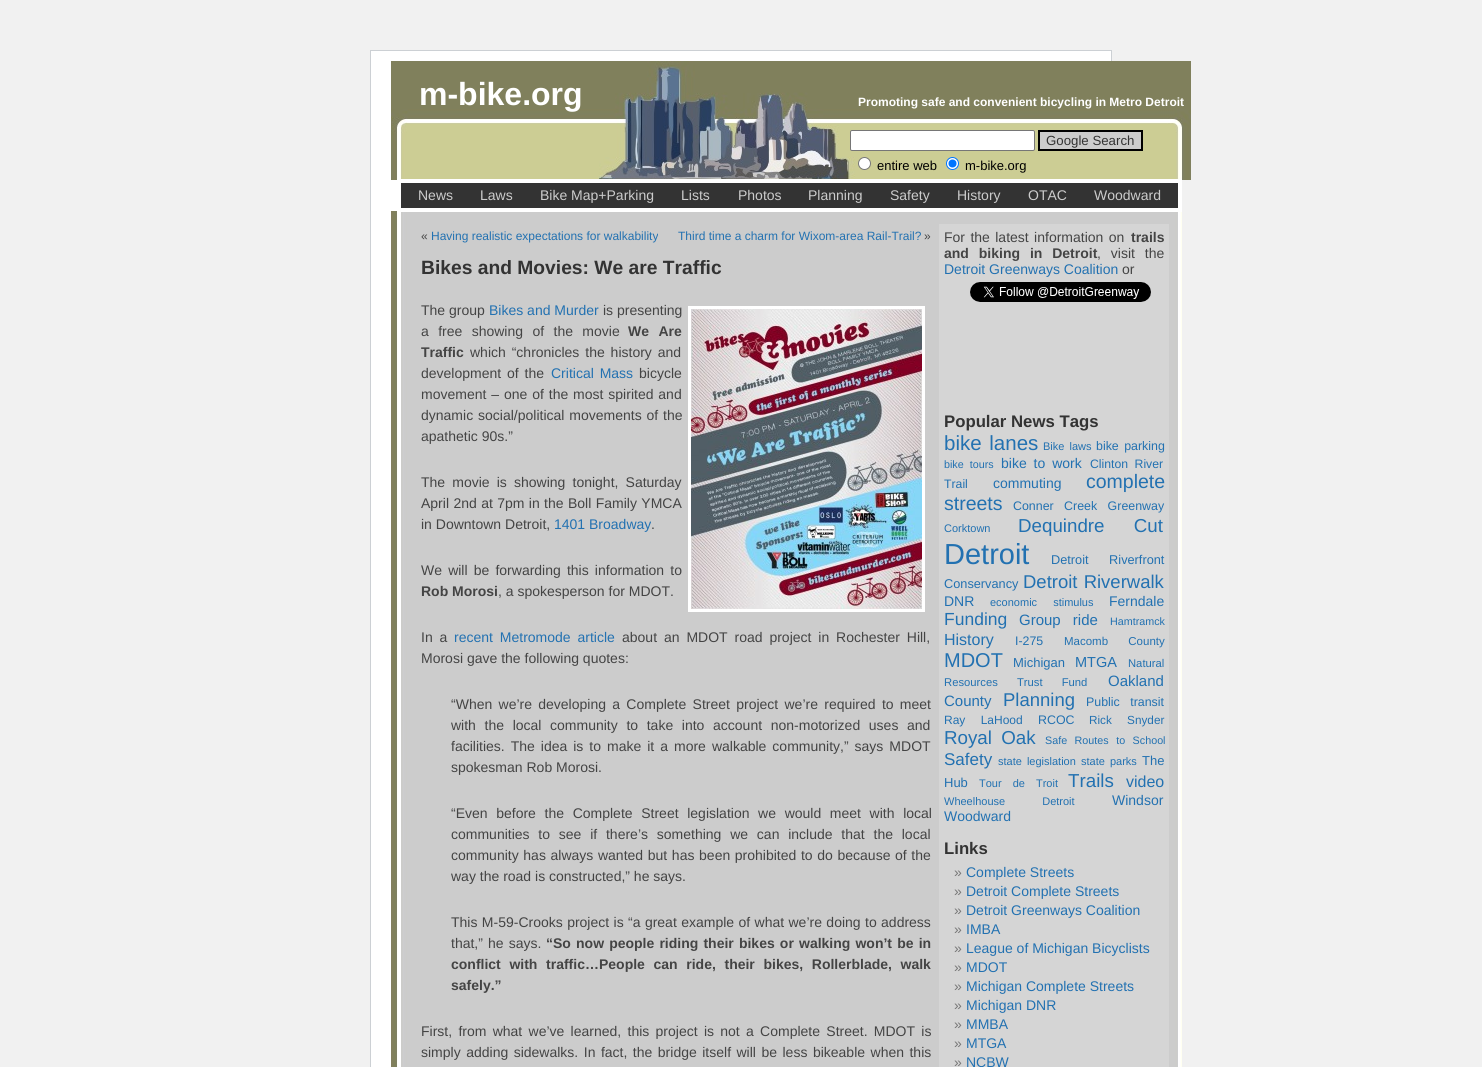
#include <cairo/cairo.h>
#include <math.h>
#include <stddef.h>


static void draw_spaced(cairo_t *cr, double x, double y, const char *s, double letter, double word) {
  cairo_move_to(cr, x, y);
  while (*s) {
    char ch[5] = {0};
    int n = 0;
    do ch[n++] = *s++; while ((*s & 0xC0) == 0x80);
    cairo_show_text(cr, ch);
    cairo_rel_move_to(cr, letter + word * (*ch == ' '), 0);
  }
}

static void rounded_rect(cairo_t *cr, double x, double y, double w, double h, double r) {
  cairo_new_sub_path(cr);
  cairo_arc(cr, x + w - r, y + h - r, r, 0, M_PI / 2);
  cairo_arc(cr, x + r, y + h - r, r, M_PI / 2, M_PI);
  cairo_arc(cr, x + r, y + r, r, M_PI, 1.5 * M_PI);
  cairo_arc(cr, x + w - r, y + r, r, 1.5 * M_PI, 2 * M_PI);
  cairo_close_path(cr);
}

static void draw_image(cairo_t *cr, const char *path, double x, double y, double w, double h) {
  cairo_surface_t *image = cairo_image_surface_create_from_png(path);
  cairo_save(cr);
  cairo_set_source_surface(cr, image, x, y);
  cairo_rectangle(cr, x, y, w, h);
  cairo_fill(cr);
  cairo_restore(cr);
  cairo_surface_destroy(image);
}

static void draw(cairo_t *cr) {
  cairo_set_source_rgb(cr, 241 / 255.0, 241 / 255.0, 241 / 255.0);
  cairo_paint(cr);
  cairo_set_source_rgb(cr, 1, 1, 1);
  cairo_rectangle(cr, 370.5, 50.5, 741, 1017);
  cairo_fill_preserve(cr);
  cairo_set_source_rgb(cr, 204 / 255.0, 208 / 255.0, 212 / 255.0);
  cairo_set_line_width(cr, 1);
  cairo_stroke(cr);
  draw_image(cr, "images/1.png", 391, 61, 800, 119);
  cairo_set_source_rgb(cr, 1, 1, 1);
  rounded_rect(cr, 850.5, 130.5, 184, 20, 1.5);
  cairo_fill_preserve(cr);
  cairo_set_source_rgb(cr, 118 / 255.0, 118 / 255.0, 118 / 255.0);
  cairo_stroke(cr);
  cairo_set_source_rgb(cr, 204 / 255.0, 204 / 255.0, 204 / 255.0);
  cairo_rectangle(cr, 1039, 131, 103, 19);
  cairo_fill_preserve(cr);
  cairo_set_source_rgb(cr, 0, 0, 0);
  cairo_set_line_width(cr, 2);
  cairo_stroke(cr);
  cairo_set_source_rgb(cr, 1, 1, 1);
  cairo_arc(cr, 864.5, 163.5, 6, 0, 2 * M_PI);
  cairo_fill_preserve(cr);
  cairo_set_source_rgb(cr, 118 / 255.0, 118 / 255.0, 118 / 255.0);
  cairo_set_line_width(cr, 1);
  cairo_stroke(cr);
  cairo_set_source_rgb(cr, 1, 1, 1);
  cairo_arc(cr, 952.5, 163.5, 6, 0, 2 * M_PI);
  cairo_fill_preserve(cr);
  cairo_set_source_rgb(cr, 0, 117 / 255.0, 1);
  cairo_stroke(cr);
  cairo_arc(cr, 952.5, 163.5, 4, 0, 2 * M_PI);
  cairo_fill(cr);
  draw_image(cr, "images/2.png", 391, 211, 791, 856);
  cairo_set_source_rgb(cr, 51 / 255.0, 51 / 255.0, 51 / 255.0);
  cairo_rectangle(cr, 399, 181, 781, 29);
  cairo_fill_preserve(cr);
  cairo_set_source_rgb(cr, 1, 1, 1);
  cairo_set_line_width(cr, 4);
  cairo_stroke(cr);
  cairo_rectangle(cr, 689.5, 307.5, 234, 303);
  cairo_set_line_width(cr, 3);
  cairo_stroke(cr);
  draw_image(cr, "images/3.png", 691, 309, 231, 300);
  cairo_set_source_rgb(cr, 213 / 255.0, 213 / 255.0, 213 / 255.0);
  cairo_rectangle(cr, 939, 224, 230, 843);
  cairo_fill(cr);
  draw_image(cr, "images/4.png", 970, 282, 181, 20);
  cairo_select_font_face(cr, "Liberation Sans", CAIRO_FONT_SLANT_NORMAL, CAIRO_FONT_WEIGHT_BOLD);
  cairo_set_font_size(cr, 32);
  cairo_set_source_rgb(cr, 1, 1, 1);
  cairo_move_to(cr, 419, 105);
  cairo_show_text(cr, "m-bike.org");
  cairo_set_font_size(cr, 12);
  cairo_move_to(cr, 858, 106);
  cairo_show_text(cr, "Promoting safe and convenient bicycling in Metro Detroit");
  cairo_select_font_face(cr, "Liberation Sans", CAIRO_FONT_SLANT_NORMAL, CAIRO_FONT_WEIGHT_NORMAL);
  cairo_set_font_size(cr, 13.25);
  cairo_set_source_rgb(cr, 51 / 255.0, 51 / 255.0, 51 / 255.0);
  cairo_move_to(cr, 1046, 145);
  cairo_show_text(cr, "Google Search");
  cairo_set_font_size(cr, 13);
  cairo_set_source_rgb(cr, 0, 0, 0);
  cairo_move_to(cr, 877, 170);
  cairo_show_text(cr, "entire web");
  cairo_move_to(cr, 965, 170);
  cairo_show_text(cr, "m-bike.org");
  cairo_set_font_size(cr, 14);
  cairo_set_source_rgb(cr, 204 / 255.0, 204 / 255.0, 204 / 255.0);
  cairo_move_to(cr, 418, 200);
  cairo_show_text(cr, "News");
  cairo_move_to(cr, 480, 200);
  cairo_show_text(cr, "Laws");
  cairo_move_to(cr, 540, 200);
  cairo_show_text(cr, "Bike Map+Parking");
  cairo_move_to(cr, 681, 200);
  cairo_show_text(cr, "Lists");
  cairo_move_to(cr, 738, 200);
  cairo_show_text(cr, "Photos");
  cairo_move_to(cr, 808, 200);
  cairo_show_text(cr, "Planning");
  cairo_move_to(cr, 890, 200);
  cairo_show_text(cr, "Safety");
  cairo_move_to(cr, 957, 200);
  cairo_show_text(cr, "History");
  cairo_move_to(cr, 1028, 200);
  cairo_show_text(cr, "OTAC");
  cairo_move_to(cr, 1094, 200);
  cairo_show_text(cr, "Woodward");
  cairo_set_font_size(cr, 12);
  cairo_set_source_rgb(cr, 68 / 255.0, 68 / 255.0, 68 / 255.0);
  cairo_move_to(cr, 421, 240);
  cairo_show_text(cr, "«");
  cairo_set_source_rgb(cr, 34 / 255.0, 113 / 255.0, 177 / 255.0);
  cairo_move_to(cr, 431, 240);
  cairo_show_text(cr, "Having realistic expectations for walkability");
  cairo_move_to(cr, 678, 240);
  cairo_show_text(cr, "Third time a charm for Wixom-area Rail-Trail?");
  cairo_set_source_rgb(cr, 68 / 255.0, 68 / 255.0, 68 / 255.0);
  cairo_move_to(cr, 924, 240);
  cairo_show_text(cr, "»");
  cairo_select_font_face(cr, "Liberation Sans", CAIRO_FONT_SLANT_NORMAL, CAIRO_FONT_WEIGHT_BOLD);
  cairo_set_font_size(cr, 19.25);
  cairo_set_source_rgb(cr, 51 / 255.0, 51 / 255.0, 51 / 255.0);
  cairo_move_to(cr, 421, 274);
  cairo_show_text(cr, "Bikes and Movies: We are Traffic");
  cairo_select_font_face(cr, "Liberation Sans", CAIRO_FONT_SLANT_NORMAL, CAIRO_FONT_WEIGHT_NORMAL);
  cairo_set_font_size(cr, 14);
  cairo_set_source_rgb(cr, 68 / 255.0, 68 / 255.0, 68 / 255.0);
  cairo_move_to(cr, 421, 315);
  cairo_show_text(cr, "The group");
  cairo_set_source_rgb(cr, 34 / 255.0, 113 / 255.0, 177 / 255.0);
  cairo_move_to(cr, 489, 315);
  cairo_show_text(cr, "Bikes and Murder");
  cairo_set_source_rgb(cr, 68 / 255.0, 68 / 255.0, 68 / 255.0);
  cairo_move_to(cr, 603, 315);
  cairo_show_text(cr, "is presenting");
  draw_spaced(cr, 421, 336, "a free showing of the movie", 0, 5.5);
  cairo_select_font_face(cr, "Liberation Sans", CAIRO_FONT_SLANT_NORMAL, CAIRO_FONT_WEIGHT_BOLD);
  draw_spaced(cr, 628, 336, "We Are", 0, 5.5);
  cairo_move_to(cr, 421, 357);
  cairo_show_text(cr, "Traffic");
  cairo_select_font_face(cr, "Liberation Sans", CAIRO_FONT_SLANT_NORMAL, CAIRO_FONT_WEIGHT_NORMAL);
  draw_spaced(cr, 470, 357, "which “chronicles the history and", 0, 2);
  draw_spaced(cr, 421, 378, "development of the", 0, 2);
  cairo_set_source_rgb(cr, 34 / 255.0, 113 / 255.0, 177 / 255.0);
  draw_spaced(cr, 551, 378, "Critical Mass", 0, 2);
  cairo_set_source_rgb(cr, 68 / 255.0, 68 / 255.0, 68 / 255.0);
  cairo_move_to(cr, 639, 378);
  cairo_show_text(cr, "bicycle");
  draw_spaced(cr, 421, 399, "movement – one of the most spirited and", 0, 1);
  draw_spaced(cr, 421, 420, "dynamic social/political movements of the", 0, 1);
  cairo_move_to(cr, 421, 441);
  cairo_show_text(cr, "apathetic 90s.”");
  draw_spaced(cr, 421, 487, "The movie is showing tonight, Saturday", 0, 3.25);
  draw_spaced(cr, 421, 508, "April 2nd at 7pm in the Boll Family YMCA", 0, 0.5);
  cairo_move_to(cr, 421, 529);
  cairo_show_text(cr, "in Downtown Detroit,");
  cairo_set_source_rgb(cr, 34 / 255.0, 113 / 255.0, 177 / 255.0);
  cairo_move_to(cr, 554, 529);
  cairo_show_text(cr, "1401 Broadway");
  cairo_set_source_rgb(cr, 68 / 255.0, 68 / 255.0, 68 / 255.0);
  cairo_move_to(cr, 651, 529);
  cairo_show_text(cr, ".");
  draw_spaced(cr, 421, 575, "We will be forwarding this information to", 0, 2.25);
  cairo_select_font_face(cr, "Liberation Sans", CAIRO_FONT_SLANT_NORMAL, CAIRO_FONT_WEIGHT_BOLD);
  cairo_move_to(cr, 421, 596);
  cairo_show_text(cr, "Rob Morosi");
  cairo_select_font_face(cr, "Liberation Sans", CAIRO_FONT_SLANT_NORMAL, CAIRO_FONT_WEIGHT_NORMAL);
  cairo_move_to(cr, 498, 596);
  cairo_show_text(cr, ", a spokesperson for MDOT.");
  draw_spaced(cr, 421, 642, "In a", 0, 3);
  cairo_set_source_rgb(cr, 34 / 255.0, 113 / 255.0, 177 / 255.0);
  draw_spaced(cr, 454, 642, "recent Metromode article", 0, 3);
  cairo_set_source_rgb(cr, 68 / 255.0, 68 / 255.0, 68 / 255.0);
  draw_spaced(cr, 622, 642, "about an MDOT road project in Rochester Hill,", 0, 3);
  cairo_move_to(cr, 421, 663);
  cairo_show_text(cr, "Morosi gave the following quotes:");
  draw_spaced(cr, 451, 709, "“When we’re developing a Complete Street project we’re required to meet", 0, 2.4);
  draw_spaced(cr, 451, 730, "with the local community to take into account non-motorized uses and", 0, 4.75);
  draw_spaced(cr, 451, 751, "facilities. The idea is to make it a more walkable community,” says MDOT", 0, 2.1);
  cairo_move_to(cr, 451, 772);
  cairo_show_text(cr, "spokesman Rob Morosi.");
  draw_spaced(cr, 451, 818, "“Even before the Complete Street legislation we would meet with local", 0, 4.75);
  draw_spaced(cr, 451, 839, "communities to see if there’s something we can include that the local", 0, 4.9);
  draw_spaced(cr, 451, 860, "community has always wanted but has been prohibited to do because of the", 0, 0.75);
  cairo_move_to(cr, 451, 881);
  cairo_show_text(cr, "way the road is constructed,” he says.");
  draw_spaced(cr, 451, 927, "This M-59-Crooks project is “a great example of what we’re doing to address", 0, 0.5);
  draw_spaced(cr, 451, 948, "that,” he says.", 0, 1.25);
  cairo_select_font_face(cr, "Liberation Sans", CAIRO_FONT_SLANT_NORMAL, CAIRO_FONT_WEIGHT_BOLD);
  draw_spaced(cr, 546, 948, "“So now people riding their bikes or walking won’t be in", 0, 1.25);
  draw_spaced(cr, 451, 969, "conflict with traffic…People can ride, their bikes, Rollerblade, walk", 0, 4.75);
  cairo_move_to(cr, 451, 990);
  cairo_show_text(cr, "safely.”");
  cairo_select_font_face(cr, "Liberation Sans", CAIRO_FONT_SLANT_NORMAL, CAIRO_FONT_WEIGHT_NORMAL);
  draw_spaced(cr, 421, 1036, "First, from what we’ve learned, this project is not a Complete Street. MDOT is", 0, 2.4);
  draw_spaced(cr, 421, 1057, "simply adding sidewalks. In fact, the bridge itself will be less bikeable when this", 0, 1.6);
  draw_spaced(cr, 944, 242, "For the latest information on", 0, 1.5);
  cairo_select_font_face(cr, "Liberation Sans", CAIRO_FONT_SLANT_NORMAL, CAIRO_FONT_WEIGHT_BOLD);
  cairo_move_to(cr, 1131, 242);
  cairo_show_text(cr, "trails");
  draw_spaced(cr, 944, 258, "and biking in Detroit", 0, 6);
  cairo_select_font_face(cr, "Liberation Sans", CAIRO_FONT_SLANT_NORMAL, CAIRO_FONT_WEIGHT_NORMAL);
  draw_spaced(cr, 1097, 258, ", visit the", 0, 6);
  cairo_set_source_rgb(cr, 34 / 255.0, 113 / 255.0, 177 / 255.0);
  cairo_move_to(cr, 944, 274);
  cairo_show_text(cr, "Detroit Greenways Coalition");
  cairo_set_source_rgb(cr, 68 / 255.0, 68 / 255.0, 68 / 255.0);
  cairo_move_to(cr, 1122, 274);
  cairo_show_text(cr, "or");
  cairo_select_font_face(cr, "Liberation Sans", CAIRO_FONT_SLANT_NORMAL, CAIRO_FONT_WEIGHT_BOLD);
  cairo_set_font_size(cr, 16.75);
  cairo_set_source_rgb(cr, 51 / 255.0, 51 / 255.0, 51 / 255.0);
  cairo_move_to(cr, 944, 427);
  cairo_show_text(cr, "Popular News Tags");
  cairo_select_font_face(cr, "Liberation Sans", CAIRO_FONT_SLANT_NORMAL, CAIRO_FONT_WEIGHT_NORMAL);
  cairo_set_font_size(cr, 20.5);
  cairo_set_source_rgb(cr, 34 / 255.0, 113 / 255.0, 177 / 255.0);
  draw_spaced(cr, 944, 450, "bike lanes", 0, 2);
  cairo_set_font_size(cr, 11);
  draw_spaced(cr, 1043, 450, "Bike laws", 0, 2);
  cairo_set_font_size(cr, 12.4);
  draw_spaced(cr, 1096, 450, "bike parking", 0, 2);
  cairo_set_font_size(cr, 10.75);
  draw_spaced(cr, 944, 468, "bike tours", 0, 3);
  cairo_set_font_size(cr, 14);
  draw_spaced(cr, 1001, 468, "bike to work", 0, 3);
  cairo_set_font_size(cr, 12.25);
  draw_spaced(cr, 1090, 468, "Clinton River", 0, 3);
  cairo_move_to(cr, 944, 488);
  cairo_show_text(cr, "Trail");
  cairo_set_font_size(cr, 14);
  cairo_move_to(cr, 993, 488);
  cairo_show_text(cr, "commuting");
  cairo_set_font_size(cr, 19.5);
  cairo_move_to(cr, 1086, 488);
  cairo_show_text(cr, "complete");
  cairo_move_to(cr, 944, 510);
  cairo_show_text(cr, "streets");
  cairo_set_font_size(cr, 12.4);
  draw_spaced(cr, 1013, 510, "Conner Creek Greenway", 0, 7);
  cairo_set_font_size(cr, 11);
  cairo_move_to(cr, 944, 532);
  cairo_show_text(cr, "Corktown");
  cairo_set_font_size(cr, 18.75);
  draw_spaced(cr, 1018, 532, "Dequindre Cut", 0, 24);
  cairo_set_font_size(cr, 29);
  cairo_move_to(cr, 944, 564);
  cairo_show_text(cr, "Detroit");
  cairo_set_font_size(cr, 12.75);
  draw_spaced(cr, 1051, 564, "Detroit Riverfront", 0, 17);
  cairo_move_to(cr, 944, 588);
  cairo_show_text(cr, "Conservancy");
  cairo_set_font_size(cr, 18.5);
  draw_spaced(cr, 1023, 588, "Detroit Riverwalk", 0, 1);
  cairo_set_font_size(cr, 14);
  cairo_move_to(cr, 944, 606);
  cairo_show_text(cr, "DNR");
  cairo_set_font_size(cr, 11);
  draw_spaced(cr, 990, 606, "economic stimulus", 0, 13);
  cairo_set_font_size(cr, 14);
  cairo_move_to(cr, 1109, 606);
  cairo_show_text(cr, "Ferndale");
  cairo_set_font_size(cr, 17.5);
  cairo_move_to(cr, 944, 625);
  cairo_show_text(cr, "Funding");
  cairo_set_font_size(cr, 15);
  draw_spaced(cr, 1019, 625, "Group ride", 0, 8);
  cairo_set_font_size(cr, 10.75);
  cairo_move_to(cr, 1110, 625);
  cairo_show_text(cr, "Hamtramck");
  cairo_set_font_size(cr, 16);
  cairo_move_to(cr, 944, 645);
  cairo_show_text(cr, "History");
  cairo_set_font_size(cr, 12.4);
  cairo_move_to(cr, 1015, 645);
  cairo_show_text(cr, "I-275");
  cairo_set_font_size(cr, 11.5);
  draw_spaced(cr, 1064, 645, "Macomb County", 0, 17);
  cairo_set_font_size(cr, 20);
  cairo_move_to(cr, 944, 667);
  cairo_show_text(cr, "MDOT");
  cairo_set_font_size(cr, 13);
  cairo_move_to(cr, 1013, 667);
  cairo_show_text(cr, "Michigan");
  cairo_set_font_size(cr, 14.5);
  cairo_move_to(cr, 1075, 667);
  cairo_show_text(cr, "MTGA");
  cairo_set_font_size(cr, 11.25);
  cairo_move_to(cr, 1128, 667);
  cairo_show_text(cr, "Natural");
  draw_spaced(cr, 944, 686, "Resources Trust Fund", 0, 16);
  cairo_set_font_size(cr, 15);
  cairo_move_to(cr, 1108, 686);
  cairo_show_text(cr, "Oakland");
  cairo_move_to(cr, 944, 706);
  cairo_show_text(cr, "County");
  cairo_set_font_size(cr, 18.5);
  cairo_move_to(cr, 1003, 706);
  cairo_show_text(cr, "Planning");
  cairo_set_font_size(cr, 12.4);
  draw_spaced(cr, 1086, 706, "Public transit", 0, 7);
  cairo_set_font_size(cr, 12);
  draw_spaced(cr, 944, 724, "Ray LaHood", 0, 12);
  cairo_set_font_size(cr, 12.4);
  cairo_move_to(cr, 1038, 724);
  cairo_show_text(cr, "RCOC");
  cairo_set_font_size(cr, 11.75);
  draw_spaced(cr, 1089, 724, "Rick Snyder", 0, 12);
  cairo_set_font_size(cr, 18.75);
  draw_spaced(cr, 944, 744, "Royal Oak", 0, 4);
  cairo_set_font_size(cr, 10.75);
  draw_spaced(cr, 1045, 744, "Safe Routes to School", 0, 4.5);
  cairo_set_font_size(cr, 17);
  cairo_move_to(cr, 944, 765);
  cairo_show_text(cr, "Safety");
  cairo_set_font_size(cr, 11);
  draw_spaced(cr, 998, 765, "state legislation", 0, 2);
  draw_spaced(cr, 1081, 765, "state parks", 0, 2);
  cairo_set_font_size(cr, 13);
  cairo_move_to(cr, 1142, 765);
  cairo_show_text(cr, "The");
  cairo_move_to(cr, 944, 787);
  cairo_show_text(cr, "Hub");
  cairo_set_font_size(cr, 11);
  draw_spaced(cr, 979, 787, "Tour de Troit", 0, 8);
  cairo_set_font_size(cr, 18.75);
  cairo_move_to(cr, 1068, 787);
  cairo_show_text(cr, "Trails");
  cairo_set_font_size(cr, 16);
  cairo_move_to(cr, 1126, 787);
  cairo_show_text(cr, "video");
  cairo_set_font_size(cr, 11);
  draw_spaced(cr, 944, 805, "Wheelhouse Detroit", 0, 34);
  cairo_set_font_size(cr, 14);
  cairo_move_to(cr, 1112, 805);
  cairo_show_text(cr, "Windsor");
  cairo_move_to(cr, 944, 821);
  cairo_show_text(cr, "Woodward");
  cairo_select_font_face(cr, "Liberation Sans", CAIRO_FONT_SLANT_NORMAL, CAIRO_FONT_WEIGHT_BOLD);
  cairo_set_font_size(cr, 16.75);
  cairo_set_source_rgb(cr, 51 / 255.0, 51 / 255.0, 51 / 255.0);
  cairo_move_to(cr, 944, 854);
  cairo_show_text(cr, "Links");
  cairo_select_font_face(cr, "Liberation Sans", CAIRO_FONT_SLANT_NORMAL, CAIRO_FONT_WEIGHT_NORMAL);
  cairo_set_font_size(cr, 14);
  cairo_set_source_rgb(cr, 119 / 255.0, 119 / 255.0, 119 / 255.0);
  cairo_move_to(cr, 954, 877);
  cairo_show_text(cr, "»");
  cairo_set_source_rgb(cr, 34 / 255.0, 113 / 255.0, 177 / 255.0);
  cairo_move_to(cr, 966, 877);
  cairo_show_text(cr, "Complete Streets");
  cairo_set_source_rgb(cr, 119 / 255.0, 119 / 255.0, 119 / 255.0);
  cairo_move_to(cr, 954, 896);
  cairo_show_text(cr, "»");
  cairo_set_source_rgb(cr, 34 / 255.0, 113 / 255.0, 177 / 255.0);
  cairo_move_to(cr, 966, 896);
  cairo_show_text(cr, "Detroit Complete Streets");
  cairo_set_source_rgb(cr, 119 / 255.0, 119 / 255.0, 119 / 255.0);
  cairo_move_to(cr, 954, 915);
  cairo_show_text(cr, "»");
  cairo_set_source_rgb(cr, 34 / 255.0, 113 / 255.0, 177 / 255.0);
  cairo_move_to(cr, 966, 915);
  cairo_show_text(cr, "Detroit Greenways Coalition");
  cairo_set_source_rgb(cr, 119 / 255.0, 119 / 255.0, 119 / 255.0);
  cairo_move_to(cr, 954, 934);
  cairo_show_text(cr, "»");
  cairo_set_source_rgb(cr, 34 / 255.0, 113 / 255.0, 177 / 255.0);
  cairo_move_to(cr, 966, 934);
  cairo_show_text(cr, "IMBA");
  cairo_set_source_rgb(cr, 119 / 255.0, 119 / 255.0, 119 / 255.0);
  cairo_move_to(cr, 954, 953);
  cairo_show_text(cr, "»");
  cairo_set_source_rgb(cr, 34 / 255.0, 113 / 255.0, 177 / 255.0);
  cairo_move_to(cr, 966, 953);
  cairo_show_text(cr, "League of Michigan Bicyclists");
  cairo_set_source_rgb(cr, 119 / 255.0, 119 / 255.0, 119 / 255.0);
  cairo_move_to(cr, 954, 972);
  cairo_show_text(cr, "»");
  cairo_set_source_rgb(cr, 34 / 255.0, 113 / 255.0, 177 / 255.0);
  cairo_move_to(cr, 966, 972);
  cairo_show_text(cr, "MDOT");
  cairo_set_source_rgb(cr, 119 / 255.0, 119 / 255.0, 119 / 255.0);
  cairo_move_to(cr, 954, 991);
  cairo_show_text(cr, "»");
  cairo_set_source_rgb(cr, 34 / 255.0, 113 / 255.0, 177 / 255.0);
  cairo_move_to(cr, 966, 991);
  cairo_show_text(cr, "Michigan Complete Streets");
  cairo_set_source_rgb(cr, 119 / 255.0, 119 / 255.0, 119 / 255.0);
  cairo_move_to(cr, 954, 1010);
  cairo_show_text(cr, "»");
  cairo_set_source_rgb(cr, 34 / 255.0, 113 / 255.0, 177 / 255.0);
  cairo_move_to(cr, 966, 1010);
  cairo_show_text(cr, "Michigan DNR");
  cairo_set_source_rgb(cr, 119 / 255.0, 119 / 255.0, 119 / 255.0);
  cairo_move_to(cr, 954, 1029);
  cairo_show_text(cr, "»");
  cairo_set_source_rgb(cr, 34 / 255.0, 113 / 255.0, 177 / 255.0);
  cairo_move_to(cr, 966, 1029);
  cairo_show_text(cr, "MMBA");
  cairo_set_source_rgb(cr, 119 / 255.0, 119 / 255.0, 119 / 255.0);
  cairo_move_to(cr, 954, 1048);
  cairo_show_text(cr, "»");
  cairo_set_source_rgb(cr, 34 / 255.0, 113 / 255.0, 177 / 255.0);
  cairo_move_to(cr, 966, 1048);
  cairo_show_text(cr, "MTGA");
  cairo_set_source_rgb(cr, 119 / 255.0, 119 / 255.0, 119 / 255.0);
  cairo_move_to(cr, 954, 1067);
  cairo_show_text(cr, "»");
  cairo_set_source_rgb(cr, 34 / 255.0, 113 / 255.0, 177 / 255.0);
  cairo_move_to(cr, 966, 1067);
  cairo_show_text(cr, "NCBW");
}

int main(void) {
  cairo_surface_t *surface = cairo_image_surface_create(CAIRO_FORMAT_RGB24, 1482, 1067);
  cairo_t *cr = cairo_create(surface);
  cairo_font_options_t *options = cairo_font_options_create();
  cairo_font_options_set_hint_metrics(options, CAIRO_HINT_METRICS_OFF);
  cairo_font_options_set_hint_style(options, CAIRO_HINT_STYLE_NONE);
  cairo_set_font_options(cr, options);
  cairo_set_miter_limit(cr, 4);
  draw(cr);
  cairo_surface_write_to_png(surface, "out.png");
  cairo_font_options_destroy(options);
  cairo_destroy(cr);
  cairo_surface_destroy(surface);
  return 0;
}
